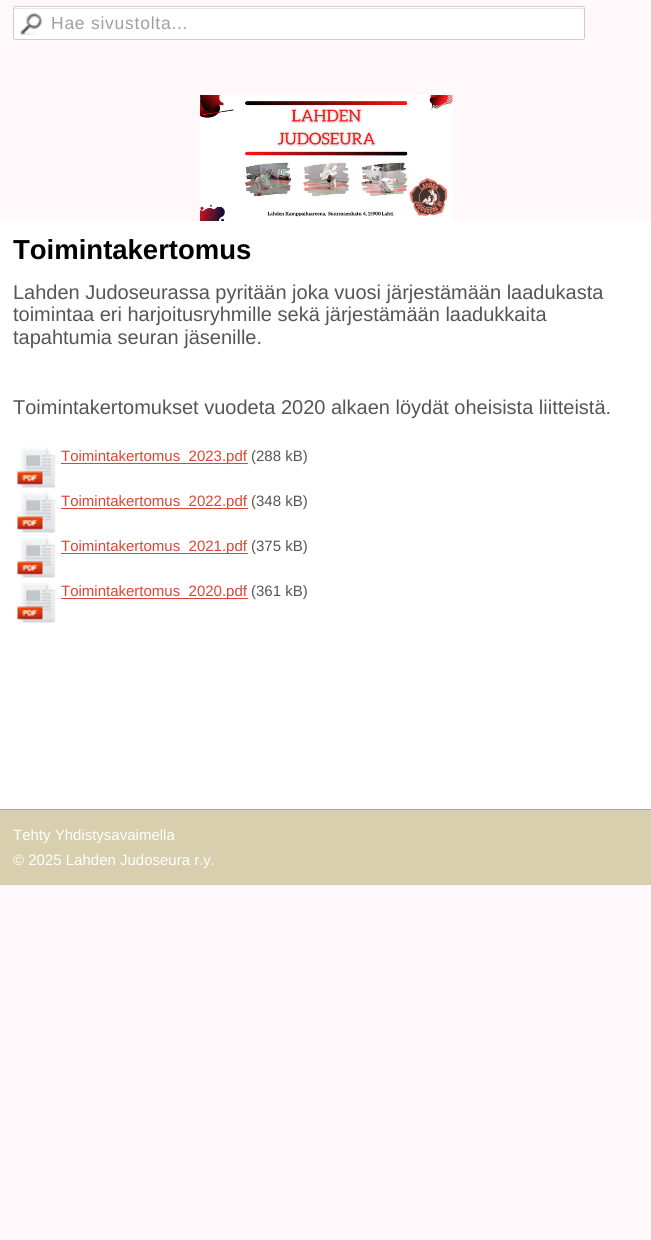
#include <cairo/cairo.h>
#include <math.h>
#include <stddef.h>


static void draw_spaced(cairo_t *cr, double x, double y, const char *s, double letter, double word) {
  cairo_move_to(cr, x, y);
  while (*s) {
    char ch[5] = {0};
    int n = 0;
    do ch[n++] = *s++; while ((*s & 0xC0) == 0x80);
    cairo_show_text(cr, ch);
    cairo_rel_move_to(cr, letter + word * (*ch == ' '), 0);
  }
}

static void rounded_rect(cairo_t *cr, double x, double y, double w, double h, double r) {
  cairo_new_sub_path(cr);
  cairo_arc(cr, x + w - r, y + h - r, r, 0, M_PI / 2);
  cairo_arc(cr, x + r, y + h - r, r, M_PI / 2, M_PI);
  cairo_arc(cr, x + r, y + r, r, M_PI, 1.5 * M_PI);
  cairo_arc(cr, x + w - r, y + r, r, 1.5 * M_PI, 2 * M_PI);
  cairo_close_path(cr);
}

static void draw_image(cairo_t *cr, const char *path, double x, double y, double w, double h) {
  cairo_surface_t *image = cairo_image_surface_create_from_png(path);
  cairo_save(cr);
  cairo_set_source_surface(cr, image, x, y);
  cairo_rectangle(cr, x, y, w, h);
  cairo_fill(cr);
  cairo_restore(cr);
  cairo_surface_destroy(image);
}

static void draw(cairo_t *cr) {
  cairo_set_source_rgb(cr, 254 / 255.0, 248 / 255.0, 251 / 255.0);
  cairo_paint(cr);
  cairo_set_source_rgb(cr, 1, 1, 1);
  rounded_rect(cr, 13, 6, 572, 34, 2.5);
  cairo_fill(cr);
  draw_image(cr, "images/1.png", 20, 12, 23, 23);
  cairo_set_source_rgb(cr, 230 / 255.0, 230 / 255.0, 230 / 255.0);
  cairo_new_path(cr);
  cairo_move_to(cr, 15, 9);
  cairo_line_to(cr, 583, 9);
  cairo_line_to(cr, 584, 12);
  cairo_curve_to(cr, 584, 12, 585, 8, 583, 8);
  cairo_line_to(cr, 15, 8);
  cairo_line_to(cr, 14, 8);
  cairo_line_to(cr, 14, 10);
  cairo_curve_to(cr, 14, 9, 14, 9, 15, 9);
  cairo_close_path(cr);
  cairo_fill(cr);
  rounded_rect(cr, 13.5, 6.5, 571, 33, 2);
  cairo_set_source_rgb(cr, 204 / 255.0, 204 / 255.0, 204 / 255.0);
  cairo_set_line_width(cr, 1);
  cairo_stroke(cr);
  draw_image(cr, "images/2.png", 200, 95, 253, 126);
  cairo_set_source_rgb(cr, 1, 1, 1);
  cairo_rectangle(cr, 0, 221, 651, 588);
  cairo_fill(cr);
  draw_image(cr, "images/3.png", 17, 447, 39, 41);
  cairo_set_source_rgb(cr, 220 / 255.0, 69 / 255.0, 51 / 255.0);
  cairo_rectangle(cr, 61, 463, 187, 1);
  cairo_fill(cr);
  draw_image(cr, "images/3.png", 17, 492, 39, 41);
  cairo_rectangle(cr, 61, 508, 187, 1);
  cairo_fill(cr);
  draw_image(cr, "images/3.png", 17, 537, 39, 41);
  cairo_rectangle(cr, 61, 553, 187, 1);
  cairo_fill(cr);
  draw_image(cr, "images/4.png", 17, 582, 39, 41);
  cairo_rectangle(cr, 61, 598, 187, 1);
  cairo_fill(cr);
  cairo_set_source_rgb(cr, 215 / 255.0, 207 / 255.0, 173 / 255.0);
  cairo_rectangle(cr, 0, 810, 651, 75);
  cairo_fill(cr);
  cairo_set_source_rgb(cr, 188 / 255.0, 172 / 255.0, 103 / 255.0);
  cairo_rectangle(cr, 0, 809, 651, 1);
  cairo_fill(cr);
  cairo_select_font_face(cr, "Liberation Sans", CAIRO_FONT_SLANT_NORMAL, CAIRO_FONT_WEIGHT_NORMAL);
  cairo_set_font_size(cr, 17.5);
  cairo_set_source_rgb(cr, 159 / 255.0, 159 / 255.0, 159 / 255.0);
  draw_spaced(cr, 51, 29, "Hae sivustolta...", 0.75, 0);
  cairo_select_font_face(cr, "Liberation Sans", CAIRO_FONT_SLANT_NORMAL, CAIRO_FONT_WEIGHT_BOLD);
  cairo_set_font_size(cr, 27.5);
  cairo_set_source_rgb(cr, 0, 0, 0);
  cairo_move_to(cr, 13, 259);
  cairo_show_text(cr, "Toimintakertomus");
  cairo_select_font_face(cr, "Liberation Sans", CAIRO_FONT_SLANT_NORMAL, CAIRO_FONT_WEIGHT_NORMAL);
  cairo_set_font_size(cr, 20);
  cairo_set_source_rgb(cr, 85 / 255.0, 85 / 255.0, 85 / 255.0);
  cairo_move_to(cr, 13, 299);
  cairo_show_text(cr, "Lahden Judoseurassa pyritään joka vuosi järjestämään laadukasta");
  cairo_move_to(cr, 13, 321);
  cairo_show_text(cr, "toimintaa eri harjoitusryhmille sekä järjestämään laadukkaita");
  cairo_move_to(cr, 13, 344);
  cairo_show_text(cr, "tapahtumia seuran jäsenille.");
  cairo_move_to(cr, 13, 414);
  cairo_show_text(cr, "Toimintakertomukset vuodeta 2020 alkaen löydät oheisista liitteistä.");
  cairo_set_font_size(cr, 15);
  cairo_set_source_rgb(cr, 220 / 255.0, 69 / 255.0, 51 / 255.0);
  cairo_move_to(cr, 61, 461);
  cairo_show_text(cr, "Toimintakertomus_2023.pdf");
  cairo_set_source_rgb(cr, 85 / 255.0, 85 / 255.0, 85 / 255.0);
  cairo_move_to(cr, 251, 461);
  cairo_show_text(cr, "(288 kB)");
  cairo_set_source_rgb(cr, 220 / 255.0, 69 / 255.0, 51 / 255.0);
  cairo_move_to(cr, 61, 506);
  cairo_show_text(cr, "Toimintakertomus_2022.pdf");
  cairo_set_source_rgb(cr, 85 / 255.0, 85 / 255.0, 85 / 255.0);
  cairo_move_to(cr, 251, 506);
  cairo_show_text(cr, "(348 kB)");
  cairo_set_source_rgb(cr, 220 / 255.0, 69 / 255.0, 51 / 255.0);
  cairo_move_to(cr, 61, 551);
  cairo_show_text(cr, "Toimintakertomus_2021.pdf");
  cairo_set_source_rgb(cr, 85 / 255.0, 85 / 255.0, 85 / 255.0);
  cairo_move_to(cr, 251, 551);
  cairo_show_text(cr, "(375 kB)");
  cairo_set_source_rgb(cr, 220 / 255.0, 69 / 255.0, 51 / 255.0);
  cairo_move_to(cr, 61, 596);
  cairo_show_text(cr, "Toimintakertomus_2020.pdf");
  cairo_set_source_rgb(cr, 85 / 255.0, 85 / 255.0, 85 / 255.0);
  cairo_move_to(cr, 251, 596);
  cairo_show_text(cr, "(361 kB)");
  cairo_set_source_rgb(cr, 1, 1, 1);
  cairo_move_to(cr, 13, 840);
  cairo_show_text(cr, "Tehty Yhdistysavaimella");
  cairo_move_to(cr, 13, 865);
  cairo_show_text(cr, "© 2025 Lahden Judoseura r.y.");
}

int main(void) {
  cairo_surface_t *surface = cairo_image_surface_create(CAIRO_FORMAT_RGB24, 651, 1240);
  cairo_t *cr = cairo_create(surface);
  cairo_font_options_t *options = cairo_font_options_create();
  cairo_font_options_set_hint_metrics(options, CAIRO_HINT_METRICS_OFF);
  cairo_font_options_set_hint_style(options, CAIRO_HINT_STYLE_NONE);
  cairo_set_font_options(cr, options);
  cairo_set_miter_limit(cr, 4);
  draw(cr);
  cairo_surface_write_to_png(surface, "out.png");
  cairo_font_options_destroy(options);
  cairo_destroy(cr);
  cairo_surface_destroy(surface);
  return 0;
}
